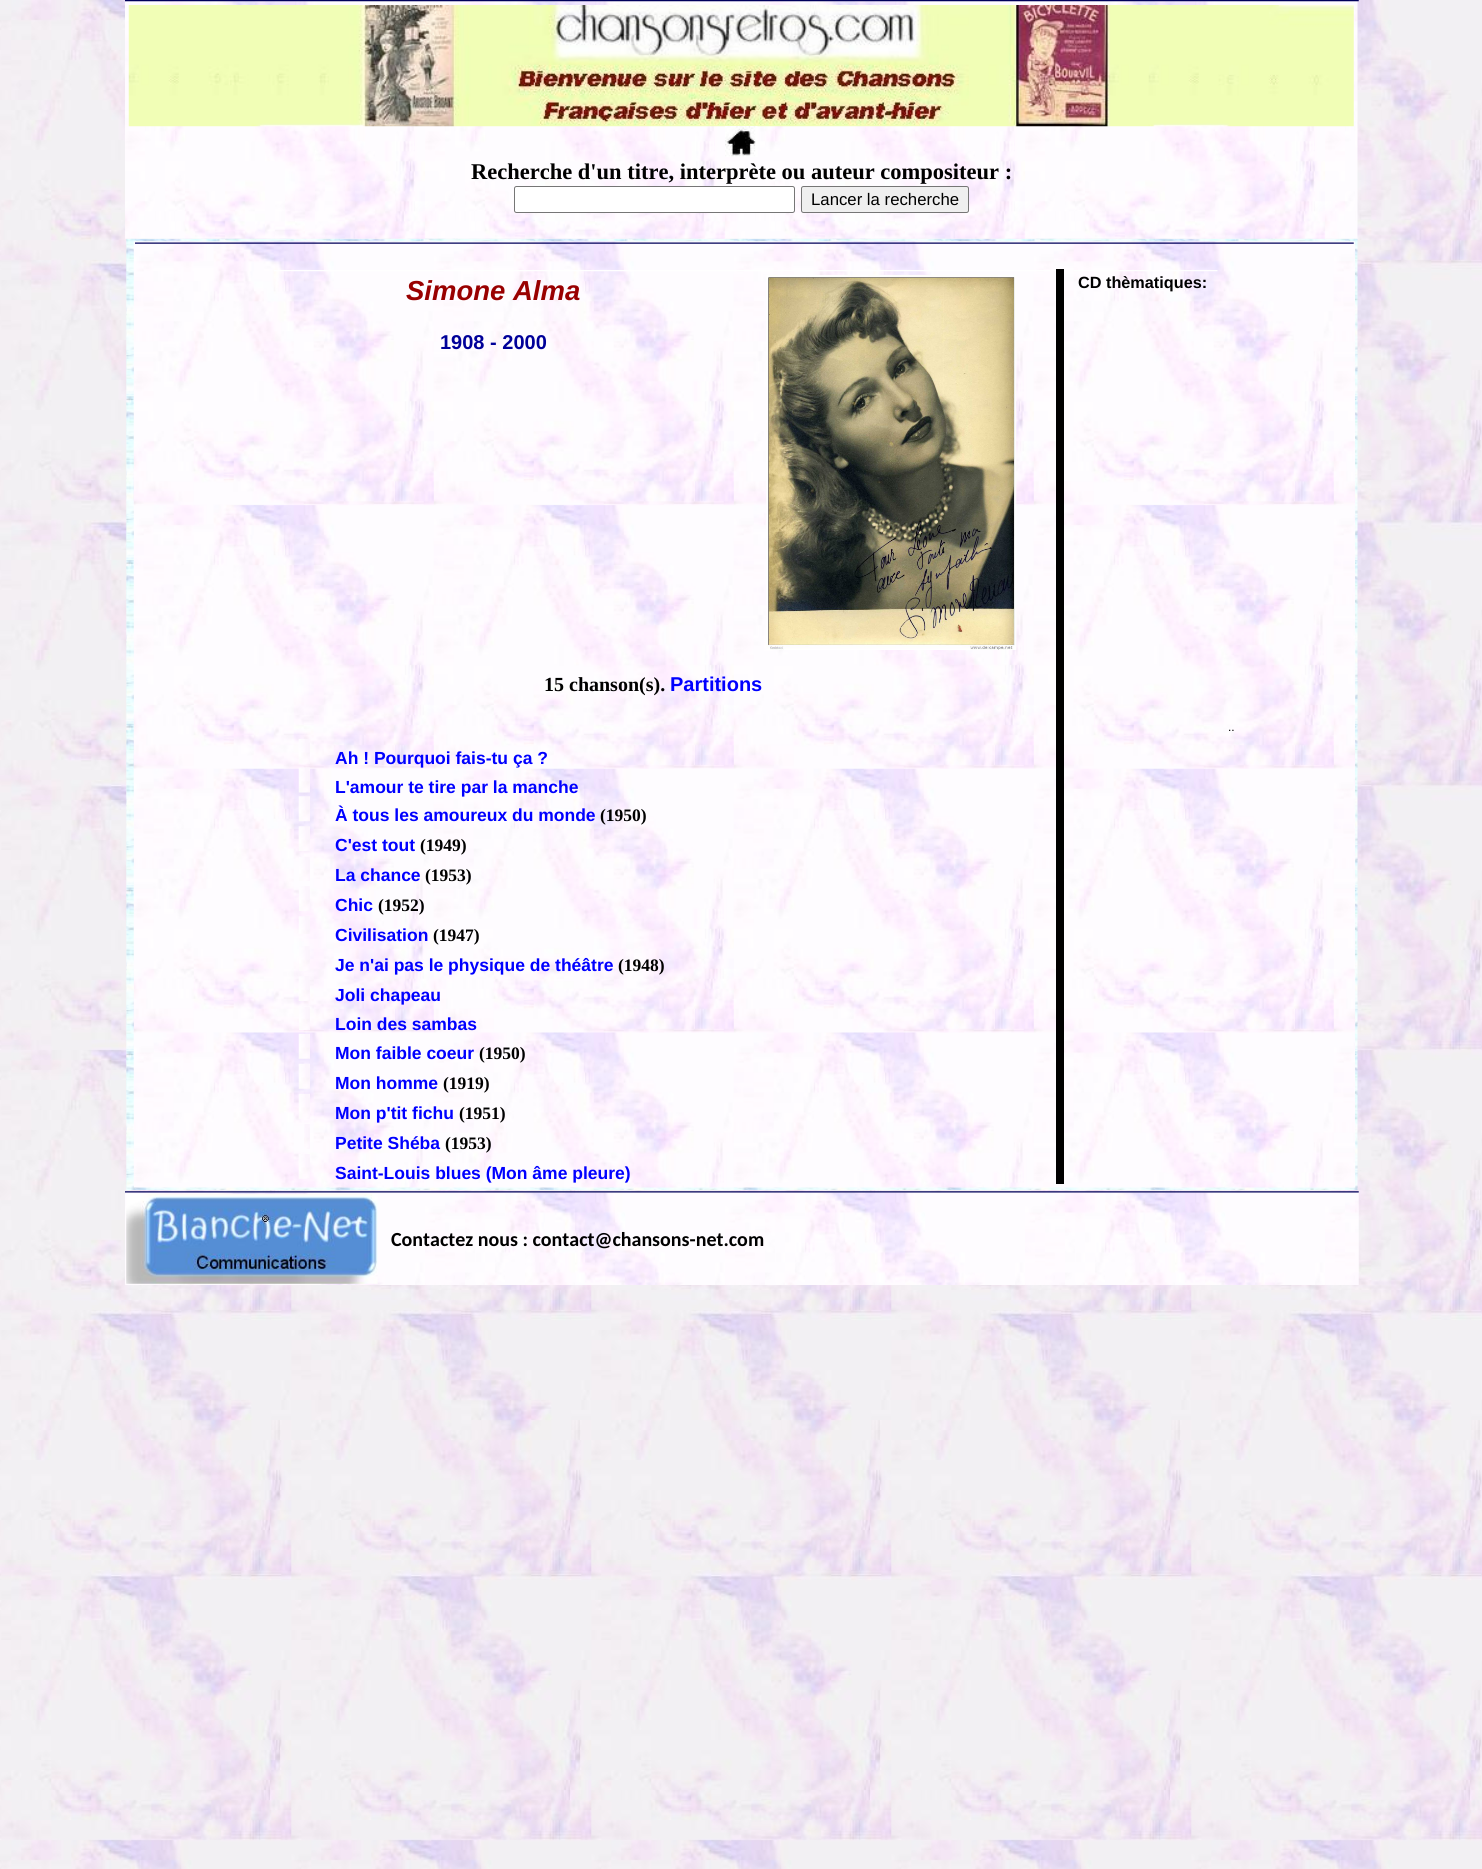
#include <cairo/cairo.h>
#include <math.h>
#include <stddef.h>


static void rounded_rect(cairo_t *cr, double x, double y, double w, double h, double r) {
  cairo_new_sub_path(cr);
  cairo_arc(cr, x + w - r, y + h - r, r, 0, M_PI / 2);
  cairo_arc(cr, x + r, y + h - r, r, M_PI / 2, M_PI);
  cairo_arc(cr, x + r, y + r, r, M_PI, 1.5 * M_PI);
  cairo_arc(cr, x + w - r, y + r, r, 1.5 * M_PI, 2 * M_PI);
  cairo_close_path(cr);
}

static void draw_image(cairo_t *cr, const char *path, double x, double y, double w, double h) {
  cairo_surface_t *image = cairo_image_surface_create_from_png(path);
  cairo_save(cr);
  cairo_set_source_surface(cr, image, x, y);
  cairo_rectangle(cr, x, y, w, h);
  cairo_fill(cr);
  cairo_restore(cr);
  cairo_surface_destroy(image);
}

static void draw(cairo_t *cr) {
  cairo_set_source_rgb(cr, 1, 1, 1);
  cairo_paint(cr);
  draw_image(cr, "images/1.png", 0, 0, 1482, 1869);
  draw_image(cr, "images/3.png", 125, 1, 1233, 238);
  draw_image(cr, "images/2.png", 125, 0, 1234, 2);
  draw_image(cr, "images/4.png", 128, 5, 1226, 122);
  draw_image(cr, "images/5.png", 725, 126, 33, 31);
  cairo_set_source_rgb(cr, 1, 1, 1);
  rounded_rect(cr, 514.5, 186.5, 280, 26, 2);
  cairo_fill_preserve(cr);
  cairo_set_source_rgb(cr, 118 / 255.0, 118 / 255.0, 118 / 255.0);
  cairo_set_line_width(cr, 1);
  cairo_stroke(cr);
  cairo_set_source_rgb(cr, 239 / 255.0, 239 / 255.0, 239 / 255.0);
  rounded_rect(cr, 801.5, 186.5, 167, 26, 2);
  cairo_fill_preserve(cr);
  cairo_set_source_rgb(cr, 118 / 255.0, 118 / 255.0, 118 / 255.0);
  cairo_stroke(cr);
  draw_image(cr, "images/6.png", 126, 238, 1232, 952);
  draw_image(cr, "images/7.png", 133, 241, 1222, 947);
  draw_image(cr, "images/8.png", 135, 242, 1219, 2);
  draw_image(cr, "images/9.png", 274, 270, 776, 2);
  draw_image(cr, "images/10.png", 766, 275, 251, 375);
  draw_image(cr, "images/11.png", 298, 739, 12, 25);
  draw_image(cr, "images/12.png", 298, 767, 12, 26);
  draw_image(cr, "images/13.png", 298, 796, 12, 26);
  draw_image(cr, "images/14.png", 298, 826, 12, 25);
  draw_image(cr, "images/15.png", 299, 857, 11, 24);
  draw_image(cr, "images/16.png", 299, 886, 11, 25);
  draw_image(cr, "images/17.png", 298, 916, 12, 18);
  draw_image(cr, "images/18.png", 299, 946, 11, 25);
  draw_image(cr, "images/19.png", 298, 976, 12, 25);
  draw_image(cr, "images/20.png", 299, 1007, 11, 23);
  draw_image(cr, "images/21.png", 298, 1033, 12, 26);
  draw_image(cr, "images/22.png", 298, 1063, 12, 26);
  draw_image(cr, "images/23.png", 298, 1093, 12, 26);
  draw_image(cr, "images/24.png", 304, 1124, 6, 25);
  draw_image(cr, "images/25.png", 298, 1154, 12, 25);
  cairo_set_source_rgb(cr, 0, 0, 0);
  cairo_rectangle(cr, 1056, 269, 8, 915);
  cairo_fill(cr);
  draw_image(cr, "images/26.png", 1074, 270, 144, 2);
  draw_image(cr, "images/28.png", 125, 1192, 1234, 93);
  draw_image(cr, "images/27.png", 125, 1191, 1234, 2);
  draw_image(cr, "images/29.png", 126, 1193, 252, 91);
  cairo_select_font_face(cr, "Liberation Serif", CAIRO_FONT_SLANT_NORMAL, CAIRO_FONT_WEIGHT_BOLD);
  cairo_set_font_size(cr, 22.5);
  cairo_move_to(cr, 471, 179);
  cairo_show_text(cr, "Recherche d'un titre, interprète ou auteur compositeur :");
  cairo_select_font_face(cr, "Liberation Sans", CAIRO_FONT_SLANT_NORMAL, CAIRO_FONT_WEIGHT_NORMAL);
  cairo_set_font_size(cr, 16.75);
  cairo_move_to(cr, 811, 205);
  cairo_show_text(cr, "Lancer la recherche");
  cairo_select_font_face(cr, "Liberation Sans", CAIRO_FONT_SLANT_ITALIC, CAIRO_FONT_WEIGHT_BOLD);
  cairo_set_font_size(cr, 27.5);
  cairo_set_source_rgb(cr, 153 / 255.0, 0, 0);
  cairo_move_to(cr, 406, 300);
  cairo_show_text(cr, "Simone Alma");
  cairo_select_font_face(cr, "Liberation Sans", CAIRO_FONT_SLANT_NORMAL, CAIRO_FONT_WEIGHT_BOLD);
  cairo_set_font_size(cr, 20);
  cairo_set_source_rgb(cr, 0, 0, 153 / 255.0);
  cairo_move_to(cr, 440, 349);
  cairo_show_text(cr, "1908 - 2000");
  cairo_select_font_face(cr, "Liberation Serif", CAIRO_FONT_SLANT_NORMAL, CAIRO_FONT_WEIGHT_BOLD);
  cairo_set_source_rgb(cr, 0, 0, 0);
  cairo_move_to(cr, 544, 691);
  cairo_show_text(cr, "15 chanson(s).");
  cairo_select_font_face(cr, "Liberation Sans", CAIRO_FONT_SLANT_NORMAL, CAIRO_FONT_WEIGHT_BOLD);
  cairo_set_source_rgb(cr, 0, 0, 1);
  cairo_move_to(cr, 670, 691);
  cairo_show_text(cr, "Partitions");
  cairo_set_font_size(cr, 17.5);
  cairo_move_to(cr, 335, 764);
  cairo_show_text(cr, "Ah ! Pourquoi fais-tu ça ?");
  cairo_move_to(cr, 335, 793);
  cairo_show_text(cr, "L'amour te tire par la manche");
  cairo_move_to(cr, 335, 821);
  cairo_show_text(cr, "À tous les amoureux du monde");
  cairo_select_font_face(cr, "Liberation Serif", CAIRO_FONT_SLANT_NORMAL, CAIRO_FONT_WEIGHT_BOLD);
  cairo_set_source_rgb(cr, 0, 0, 0);
  cairo_move_to(cr, 600, 821);
  cairo_show_text(cr, "(1950)");
  cairo_select_font_face(cr, "Liberation Sans", CAIRO_FONT_SLANT_NORMAL, CAIRO_FONT_WEIGHT_BOLD);
  cairo_set_source_rgb(cr, 0, 0, 1);
  cairo_move_to(cr, 335, 851);
  cairo_show_text(cr, "C'est tout");
  cairo_select_font_face(cr, "Liberation Serif", CAIRO_FONT_SLANT_NORMAL, CAIRO_FONT_WEIGHT_BOLD);
  cairo_set_source_rgb(cr, 0, 0, 0);
  cairo_move_to(cr, 420, 851);
  cairo_show_text(cr, "(1949)");
  cairo_select_font_face(cr, "Liberation Sans", CAIRO_FONT_SLANT_NORMAL, CAIRO_FONT_WEIGHT_BOLD);
  cairo_set_source_rgb(cr, 0, 0, 1);
  cairo_move_to(cr, 335, 881);
  cairo_show_text(cr, "La chance");
  cairo_select_font_face(cr, "Liberation Serif", CAIRO_FONT_SLANT_NORMAL, CAIRO_FONT_WEIGHT_BOLD);
  cairo_set_source_rgb(cr, 0, 0, 0);
  cairo_move_to(cr, 425, 881);
  cairo_show_text(cr, "(1953)");
  cairo_select_font_face(cr, "Liberation Sans", CAIRO_FONT_SLANT_NORMAL, CAIRO_FONT_WEIGHT_BOLD);
  cairo_set_source_rgb(cr, 0, 0, 1);
  cairo_move_to(cr, 335, 911);
  cairo_show_text(cr, "Chic");
  cairo_select_font_face(cr, "Liberation Serif", CAIRO_FONT_SLANT_NORMAL, CAIRO_FONT_WEIGHT_BOLD);
  cairo_set_source_rgb(cr, 0, 0, 0);
  cairo_move_to(cr, 378, 911);
  cairo_show_text(cr, "(1952)");
  cairo_select_font_face(cr, "Liberation Sans", CAIRO_FONT_SLANT_NORMAL, CAIRO_FONT_WEIGHT_BOLD);
  cairo_set_source_rgb(cr, 0, 0, 1);
  cairo_move_to(cr, 335, 941);
  cairo_show_text(cr, "Civilisation");
  cairo_select_font_face(cr, "Liberation Serif", CAIRO_FONT_SLANT_NORMAL, CAIRO_FONT_WEIGHT_BOLD);
  cairo_set_source_rgb(cr, 0, 0, 0);
  cairo_move_to(cr, 433, 941);
  cairo_show_text(cr, "(1947)");
  cairo_select_font_face(cr, "Liberation Sans", CAIRO_FONT_SLANT_NORMAL, CAIRO_FONT_WEIGHT_BOLD);
  cairo_set_source_rgb(cr, 0, 0, 1);
  cairo_move_to(cr, 335, 971);
  cairo_show_text(cr, "Je n'ai pas le physique de théâtre");
  cairo_select_font_face(cr, "Liberation Serif", CAIRO_FONT_SLANT_NORMAL, CAIRO_FONT_WEIGHT_BOLD);
  cairo_set_source_rgb(cr, 0, 0, 0);
  cairo_move_to(cr, 618, 971);
  cairo_show_text(cr, "(1948)");
  cairo_select_font_face(cr, "Liberation Sans", CAIRO_FONT_SLANT_NORMAL, CAIRO_FONT_WEIGHT_BOLD);
  cairo_set_source_rgb(cr, 0, 0, 1);
  cairo_move_to(cr, 335, 1001);
  cairo_show_text(cr, "Joli chapeau");
  cairo_move_to(cr, 335, 1030);
  cairo_show_text(cr, "Loin des sambas");
  cairo_move_to(cr, 335, 1059);
  cairo_show_text(cr, "Mon faible coeur");
  cairo_select_font_face(cr, "Liberation Serif", CAIRO_FONT_SLANT_NORMAL, CAIRO_FONT_WEIGHT_BOLD);
  cairo_set_source_rgb(cr, 0, 0, 0);
  cairo_move_to(cr, 479, 1059);
  cairo_show_text(cr, "(1950)");
  cairo_select_font_face(cr, "Liberation Sans", CAIRO_FONT_SLANT_NORMAL, CAIRO_FONT_WEIGHT_BOLD);
  cairo_set_source_rgb(cr, 0, 0, 1);
  cairo_move_to(cr, 335, 1089);
  cairo_show_text(cr, "Mon homme");
  cairo_select_font_face(cr, "Liberation Serif", CAIRO_FONT_SLANT_NORMAL, CAIRO_FONT_WEIGHT_BOLD);
  cairo_set_source_rgb(cr, 0, 0, 0);
  cairo_move_to(cr, 443, 1089);
  cairo_show_text(cr, "(1919)");
  cairo_select_font_face(cr, "Liberation Sans", CAIRO_FONT_SLANT_NORMAL, CAIRO_FONT_WEIGHT_BOLD);
  cairo_set_source_rgb(cr, 0, 0, 1);
  cairo_move_to(cr, 335, 1119);
  cairo_show_text(cr, "Mon p'tit fichu");
  cairo_select_font_face(cr, "Liberation Serif", CAIRO_FONT_SLANT_NORMAL, CAIRO_FONT_WEIGHT_BOLD);
  cairo_set_source_rgb(cr, 0, 0, 0);
  cairo_move_to(cr, 459, 1119);
  cairo_show_text(cr, "(1951)");
  cairo_select_font_face(cr, "Liberation Sans", CAIRO_FONT_SLANT_NORMAL, CAIRO_FONT_WEIGHT_BOLD);
  cairo_set_source_rgb(cr, 0, 0, 1);
  cairo_move_to(cr, 335, 1149);
  cairo_show_text(cr, "Petite Shéba");
  cairo_select_font_face(cr, "Liberation Serif", CAIRO_FONT_SLANT_NORMAL, CAIRO_FONT_WEIGHT_BOLD);
  cairo_set_source_rgb(cr, 0, 0, 0);
  cairo_move_to(cr, 445, 1149);
  cairo_show_text(cr, "(1953)");
  cairo_select_font_face(cr, "Liberation Sans", CAIRO_FONT_SLANT_NORMAL, CAIRO_FONT_WEIGHT_BOLD);
  cairo_set_source_rgb(cr, 0, 0, 1);
  cairo_move_to(cr, 335, 1179);
  cairo_show_text(cr, "Saint-Louis blues (Mon âme pleure)");
  cairo_set_font_size(cr, 16.25);
  cairo_set_source_rgb(cr, 0, 0, 0);
  cairo_move_to(cr, 1078, 288);
  cairo_show_text(cr, "CD thèmatiques:");
  cairo_select_font_face(cr, "Liberation Sans", CAIRO_FONT_SLANT_NORMAL, CAIRO_FONT_WEIGHT_NORMAL);
  cairo_set_font_size(cr, 12);
  cairo_move_to(cr, 1228, 731);
  cairo_show_text(cr, "..");
  cairo_select_font_face(cr, "Carlito", CAIRO_FONT_SLANT_NORMAL, CAIRO_FONT_WEIGHT_BOLD);
  cairo_set_font_size(cr, 20);
  cairo_move_to(cr, 391, 1246);
  cairo_show_text(cr, "Contactez nous : contact@chansons-net.com");
}

int main(void) {
  cairo_surface_t *surface = cairo_image_surface_create(CAIRO_FORMAT_RGB24, 1482, 1869);
  cairo_t *cr = cairo_create(surface);
  cairo_font_options_t *options = cairo_font_options_create();
  cairo_font_options_set_hint_metrics(options, CAIRO_HINT_METRICS_OFF);
  cairo_font_options_set_hint_style(options, CAIRO_HINT_STYLE_NONE);
  cairo_set_font_options(cr, options);
  cairo_set_miter_limit(cr, 4);
  draw(cr);
  cairo_surface_write_to_png(surface, "out.png");
  cairo_font_options_destroy(options);
  cairo_destroy(cr);
  cairo_surface_destroy(surface);
  return 0;
}
